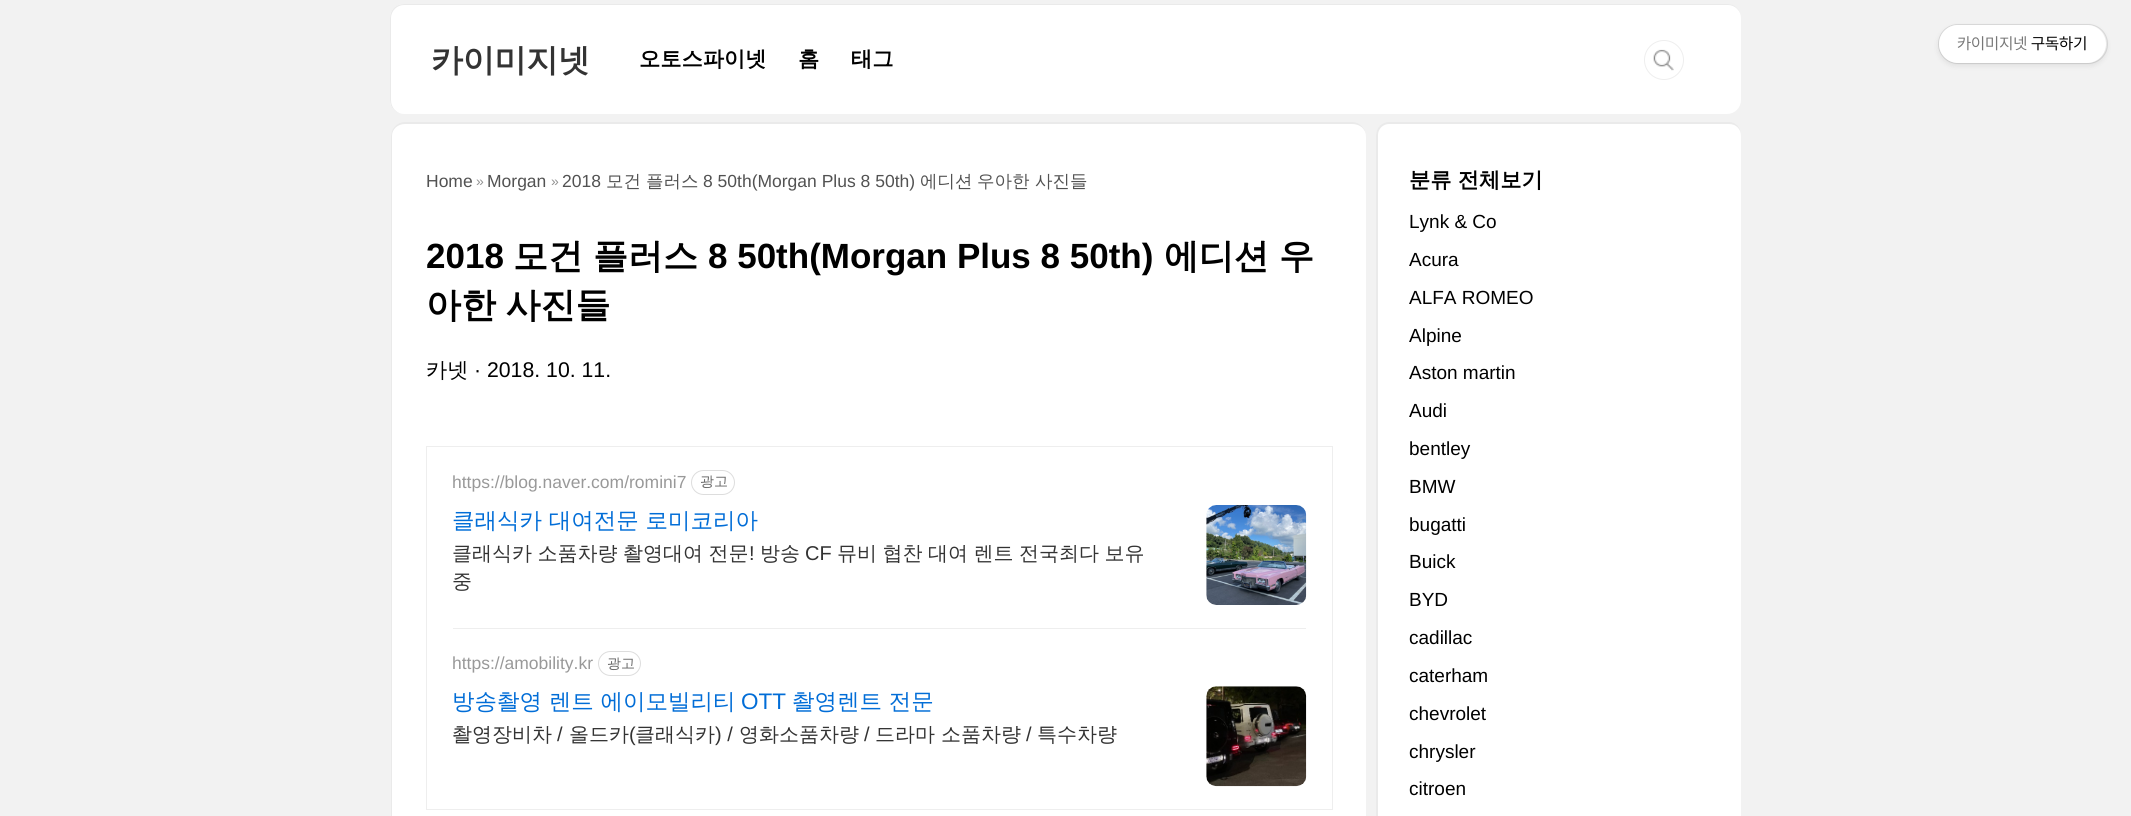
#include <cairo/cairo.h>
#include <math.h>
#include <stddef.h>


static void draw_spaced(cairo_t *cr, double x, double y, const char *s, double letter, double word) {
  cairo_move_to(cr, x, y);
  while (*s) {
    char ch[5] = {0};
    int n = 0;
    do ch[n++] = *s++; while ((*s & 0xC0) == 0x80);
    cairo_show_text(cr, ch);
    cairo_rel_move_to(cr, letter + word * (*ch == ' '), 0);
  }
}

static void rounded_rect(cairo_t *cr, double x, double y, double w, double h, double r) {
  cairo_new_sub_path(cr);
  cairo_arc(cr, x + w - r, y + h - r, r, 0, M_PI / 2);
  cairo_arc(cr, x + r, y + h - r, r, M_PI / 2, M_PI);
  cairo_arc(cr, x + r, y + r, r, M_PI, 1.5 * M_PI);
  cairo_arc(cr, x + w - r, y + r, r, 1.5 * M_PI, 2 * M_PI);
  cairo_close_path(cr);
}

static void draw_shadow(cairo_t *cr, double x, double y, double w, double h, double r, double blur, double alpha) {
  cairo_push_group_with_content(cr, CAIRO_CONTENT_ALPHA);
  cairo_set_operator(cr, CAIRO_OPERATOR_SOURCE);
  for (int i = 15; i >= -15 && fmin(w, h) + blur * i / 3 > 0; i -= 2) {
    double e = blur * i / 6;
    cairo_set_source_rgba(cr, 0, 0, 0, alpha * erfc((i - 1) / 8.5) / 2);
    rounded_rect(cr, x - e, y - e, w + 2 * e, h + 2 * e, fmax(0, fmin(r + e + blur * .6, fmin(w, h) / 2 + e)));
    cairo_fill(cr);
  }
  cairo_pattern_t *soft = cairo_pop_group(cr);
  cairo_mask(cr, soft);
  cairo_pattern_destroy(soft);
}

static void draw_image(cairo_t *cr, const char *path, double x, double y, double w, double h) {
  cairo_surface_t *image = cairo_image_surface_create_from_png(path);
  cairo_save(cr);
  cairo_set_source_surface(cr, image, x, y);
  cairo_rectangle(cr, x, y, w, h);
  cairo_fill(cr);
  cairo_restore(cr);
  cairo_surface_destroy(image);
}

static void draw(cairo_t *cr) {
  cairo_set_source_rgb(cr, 242 / 255.0, 242 / 255.0, 242 / 255.0);
  cairo_paint(cr);
  cairo_set_source_rgb(cr, 0, 0, 0);
  draw_shadow(cr, 1939, 28, 167, 37, 18.5, 3, 0.1);
  rounded_rect(cr, 1938.5, 24.5, 169, 39, 19.5);
  cairo_set_source_rgba(cr, 0, 0, 0, 0.1);
  cairo_set_line_width(cr, 1);
  cairo_stroke(cr);
  cairo_set_source_rgb(cr, 1, 1, 1);
  rounded_rect(cr, 1939, 25, 167, 38, 19);
  cairo_fill(cr);
  rounded_rect(cr, 390, 4, 1351, 110, 14);
  cairo_fill(cr);
  cairo_set_source_rgb(cr, 234 / 255.0, 234 / 255.0, 234 / 255.0);
  cairo_set_fill_rule(cr, CAIRO_FILL_RULE_EVEN_ODD);
  cairo_new_path(cr);
  cairo_move_to(cr, 404, 4);
  cairo_line_to(cr, 1728, 4);
  cairo_curve_to(cr, 1735, 4, 1741, 10, 1741, 18);
  cairo_line_to(cr, 1741, 100);
  cairo_curve_to(cr, 1741, 108, 1735, 114, 1728, 114);
  cairo_line_to(cr, 404, 114);
  cairo_curve_to(cr, 396, 114, 390, 108, 390, 100);
  cairo_line_to(cr, 390, 18);
  cairo_curve_to(cr, 390, 10, 396, 4, 404, 4);
  cairo_close_path(cr);
  cairo_move_to(cr, 404, 5);
  cairo_line_to(cr, 1728, 5);
  cairo_curve_to(cr, 1735, 5, 1741, 11, 1741, 18);
  cairo_line_to(cr, 1741, 100);
  cairo_curve_to(cr, 1741, 108, 1735, 114, 1728, 114);
  cairo_line_to(cr, 404, 114);
  cairo_curve_to(cr, 397, 114, 391, 108, 391, 100);
  cairo_line_to(cr, 391, 18);
  cairo_curve_to(cr, 391, 11, 397, 5, 404, 5);
  cairo_close_path(cr);
  cairo_fill(cr);
  draw_image(cr, "images/1.png", 1653, 49, 21, 22);
  cairo_arc(cr, 1664, 60, 19.5, 0, 2 * M_PI);
  cairo_set_source_rgb(cr, 238 / 255.0, 238 / 255.0, 238 / 255.0);
  cairo_stroke(cr);
  cairo_set_source_rgb(cr, 1, 1, 1);
  rounded_rect(cr, 391, 123, 975, 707, 14);
  cairo_fill(cr);
  cairo_set_source_rgb(cr, 234 / 255.0, 234 / 255.0, 234 / 255.0);
  cairo_new_path(cr);
  cairo_move_to(cr, 405, 122);
  cairo_line_to(cr, 1352, 122);
  cairo_curve_to(cr, 1360, 122, 1366, 129, 1366, 136);
  cairo_line_to(cr, 1366, 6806);
  cairo_curve_to(cr, 1366, 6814, 1360, 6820, 1352, 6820);
  cairo_line_to(cr, 405, 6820);
  cairo_curve_to(cr, 397, 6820, 391, 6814, 391, 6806);
  cairo_line_to(cr, 391, 136);
  cairo_curve_to(cr, 391, 129, 397, 122, 405, 122);
  cairo_close_path(cr);
  cairo_move_to(cr, 405, 124);
  cairo_line_to(cr, 1352, 124);
  cairo_curve_to(cr, 1360, 124, 1366, 129, 1366, 136);
  cairo_line_to(cr, 1366, 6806);
  cairo_curve_to(cr, 1366, 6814, 1360, 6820, 1352, 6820);
  cairo_line_to(cr, 405, 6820);
  cairo_curve_to(cr, 398, 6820, 392, 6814, 392, 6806);
  cairo_line_to(cr, 392, 136);
  cairo_curve_to(cr, 392, 129, 398, 124, 405, 124);
  cairo_close_path(cr);
  cairo_fill(cr);
  cairo_rectangle(cr, 426.5, 446.5, 906, 363);
  cairo_set_source_rgb(cr, 238 / 255.0, 238 / 255.0, 238 / 255.0);
  cairo_stroke(cr);
  rounded_rect(cr, 691.5, 470.5, 43, 24, 12);
  cairo_set_source_rgb(cr, 221 / 255.0, 221 / 255.0, 221 / 255.0);
  cairo_stroke(cr);
  draw_image(cr, "images/2.png", 1206, 505, 101, 100);
  cairo_set_source_rgb(cr, 238 / 255.0, 238 / 255.0, 238 / 255.0);
  cairo_rectangle(cr, 453, 628, 853, 1);
  cairo_fill(cr);
  rounded_rect(cr, 598.5, 651.5, 42, 24, 12);
  cairo_set_source_rgb(cr, 221 / 255.0, 221 / 255.0, 221 / 255.0);
  cairo_stroke(cr);
  draw_image(cr, "images/3.png", 1206, 686, 101, 101);
  cairo_set_source_rgb(cr, 1, 1, 1);
  rounded_rect(cr, 1376, 123, 365, 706, 13);
  cairo_fill(cr);
  cairo_set_source_rgb(cr, 234 / 255.0, 234 / 255.0, 234 / 255.0);
  cairo_new_path(cr);
  cairo_move_to(cr, 1389, 122);
  cairo_line_to(cr, 1729, 122);
  cairo_curve_to(cr, 1736, 122, 1741, 128, 1741, 135);
  cairo_line_to(cr, 1741, 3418);
  cairo_curve_to(cr, 1741, 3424, 1736, 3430, 1729, 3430);
  cairo_line_to(cr, 1389, 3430);
  cairo_curve_to(cr, 1382, 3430, 1376, 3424, 1376, 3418);
  cairo_line_to(cr, 1376, 135);
  cairo_curve_to(cr, 1376, 128, 1382, 122, 1389, 122);
  cairo_close_path(cr);
  cairo_move_to(cr, 1389, 124);
  cairo_line_to(cr, 1729, 124);
  cairo_curve_to(cr, 1736, 124, 1741, 129, 1741, 135);
  cairo_line_to(cr, 1741, 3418);
  cairo_curve_to(cr, 1741, 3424, 1736, 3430, 1729, 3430);
  cairo_line_to(cr, 1389, 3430);
  cairo_curve_to(cr, 1383, 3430, 1378, 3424, 1378, 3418);
  cairo_line_to(cr, 1378, 135);
  cairo_curve_to(cr, 1378, 129, 1383, 124, 1389, 124);
  cairo_close_path(cr);
  cairo_fill(cr);
  cairo_select_font_face(cr, "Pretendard", CAIRO_FONT_SLANT_NORMAL, CAIRO_FONT_WEIGHT_NORMAL);
  cairo_set_font_size(cr, 16.25);
  cairo_set_source_rgb(cr, 119 / 255.0, 119 / 255.0, 119 / 255.0);
  cairo_move_to(cr, 1957, 49);
  cairo_show_text(cr, "카이미지넷");
  cairo_set_source_rgb(cr, 0, 0, 0);
  cairo_move_to(cr, 2031, 49);
  cairo_show_text(cr, "구독하기");
  cairo_select_font_face(cr, "WenQuanYi Zen Hei", CAIRO_FONT_SLANT_NORMAL, CAIRO_FONT_WEIGHT_BOLD);
  cairo_set_font_size(cr, 32);
  cairo_set_source_rgb(cr, 51 / 255.0, 51 / 255.0, 51 / 255.0);
  draw_spaced(cr, 431, 71, "카이미지넷", -0.25, 0);
  cairo_set_font_size(cr, 21.25);
  cairo_set_source_rgb(cr, 0, 0, 0);
  cairo_move_to(cr, 639, 66);
  cairo_show_text(cr, "오토스파이넷");
  cairo_move_to(cr, 798, 66);
  cairo_show_text(cr, "홈");
  cairo_move_to(cr, 851, 66);
  cairo_show_text(cr, "태그");
  cairo_select_font_face(cr, "Liberation Sans", CAIRO_FONT_SLANT_NORMAL, CAIRO_FONT_WEIGHT_NORMAL);
  cairo_set_font_size(cr, 17.5);
  cairo_set_source_rgb(cr, 82 / 255.0, 82 / 255.0, 82 / 255.0);
  cairo_move_to(cr, 426, 187);
  cairo_show_text(cr, "Home");
  cairo_set_font_size(cr, 14);
  cairo_set_source_rgb(cr, 146 / 255.0, 146 / 255.0, 146 / 255.0);
  cairo_move_to(cr, 476, 186);
  cairo_show_text(cr, "»");
  cairo_set_font_size(cr, 17.5);
  cairo_set_source_rgb(cr, 82 / 255.0, 82 / 255.0, 82 / 255.0);
  cairo_move_to(cr, 487, 187);
  cairo_show_text(cr, "Morgan");
  cairo_set_font_size(cr, 14);
  cairo_set_source_rgb(cr, 146 / 255.0, 146 / 255.0, 146 / 255.0);
  cairo_move_to(cr, 551, 186);
  cairo_show_text(cr, "»");
  cairo_set_font_size(cr, 17.5);
  cairo_set_source_rgb(cr, 82 / 255.0, 82 / 255.0, 82 / 255.0);
  cairo_move_to(cr, 562, 187);
  cairo_show_text(cr, "2018");
  cairo_select_font_face(cr, "WenQuanYi Zen Hei Medium", CAIRO_FONT_SLANT_NORMAL, CAIRO_FONT_WEIGHT_NORMAL);
  cairo_move_to(cr, 606, 187);
  cairo_show_text(cr, "모건");
  cairo_move_to(cr, 646, 187);
  cairo_show_text(cr, "플러스");
  cairo_select_font_face(cr, "Liberation Sans", CAIRO_FONT_SLANT_NORMAL, CAIRO_FONT_WEIGHT_NORMAL);
  cairo_move_to(cr, 703, 187);
  cairo_show_text(cr, "8 50th(Morgan Plus 8 50th)");
  cairo_select_font_face(cr, "WenQuanYi Zen Hei Medium", CAIRO_FONT_SLANT_NORMAL, CAIRO_FONT_WEIGHT_NORMAL);
  cairo_move_to(cr, 920, 187);
  cairo_show_text(cr, "에디션");
  cairo_move_to(cr, 977, 187);
  cairo_show_text(cr, "우아한");
  cairo_move_to(cr, 1035, 187);
  cairo_show_text(cr, "사진들");
  cairo_select_font_face(cr, "Liberation Sans", CAIRO_FONT_SLANT_NORMAL, CAIRO_FONT_WEIGHT_BOLD);
  cairo_set_font_size(cr, 35);
  cairo_set_source_rgb(cr, 0, 0, 0);
  cairo_move_to(cr, 426, 268);
  cairo_show_text(cr, "2018");
  cairo_select_font_face(cr, "WenQuanYi Zen Hei", CAIRO_FONT_SLANT_NORMAL, CAIRO_FONT_WEIGHT_BOLD);
  cairo_move_to(cr, 513, 268);
  cairo_show_text(cr, "모건");
  cairo_move_to(cr, 593, 268);
  cairo_show_text(cr, "플러스");
  cairo_select_font_face(cr, "Liberation Sans", CAIRO_FONT_SLANT_NORMAL, CAIRO_FONT_WEIGHT_BOLD);
  cairo_move_to(cr, 708, 268);
  cairo_show_text(cr, "8 50th(Morgan Plus 8 50th)");
  cairo_select_font_face(cr, "WenQuanYi Zen Hei", CAIRO_FONT_SLANT_NORMAL, CAIRO_FONT_WEIGHT_BOLD);
  cairo_move_to(cr, 1164, 268);
  cairo_show_text(cr, "에디션");
  cairo_move_to(cr, 1279, 268);
  cairo_show_text(cr, "우");
  draw_spaced(cr, 426, 317, "아한 사진들", 0, -1);
  cairo_select_font_face(cr, "WenQuanYi Zen Hei Medium", CAIRO_FONT_SLANT_NORMAL, CAIRO_FONT_WEIGHT_NORMAL);
  cairo_set_font_size(cr, 21.25);
  cairo_move_to(cr, 426, 377);
  cairo_show_text(cr, "카넷");
  cairo_select_font_face(cr, "Liberation Sans", CAIRO_FONT_SLANT_NORMAL, CAIRO_FONT_WEIGHT_NORMAL);
  cairo_move_to(cr, 474, 377);
  cairo_show_text(cr, "· 2018. 10. 11.");
  cairo_set_font_size(cr, 17.5);
  cairo_set_source_rgb(cr, 153 / 255.0, 153 / 255.0, 153 / 255.0);
  cairo_move_to(cr, 452, 488);
  cairo_show_text(cr, "https://blog.naver.com/romini7");
  cairo_select_font_face(cr, "WenQuanYi Zen Hei Medium", CAIRO_FONT_SLANT_NORMAL, CAIRO_FONT_WEIGHT_NORMAL);
  cairo_set_font_size(cr, 14);
  cairo_set_source_rgb(cr, 102 / 255.0, 102 / 255.0, 102 / 255.0);
  cairo_move_to(cr, 700, 486);
  cairo_show_text(cr, "광고");
  cairo_set_font_size(cr, 22.5);
  cairo_set_source_rgb(cr, 1 / 255.0, 109 / 255.0, 215 / 255.0);
  cairo_move_to(cr, 452, 528);
  cairo_show_text(cr, "클래식카 대여전문 로미코리아");
  cairo_set_font_size(cr, 20);
  cairo_set_source_rgb(cr, 51 / 255.0, 51 / 255.0, 51 / 255.0);
  draw_spaced(cr, 452, 560, "클래식카 소품차량 촬영대여 전문", 0, -0.5);
  cairo_select_font_face(cr, "Liberation Sans", CAIRO_FONT_SLANT_NORMAL, CAIRO_FONT_WEIGHT_NORMAL);
  cairo_move_to(cr, 749, 560);
  cairo_show_text(cr, "!");
  cairo_select_font_face(cr, "WenQuanYi Zen Hei Medium", CAIRO_FONT_SLANT_NORMAL, CAIRO_FONT_WEIGHT_NORMAL);
  cairo_move_to(cr, 760, 560);
  cairo_show_text(cr, "방송");
  cairo_select_font_face(cr, "Liberation Sans", CAIRO_FONT_SLANT_NORMAL, CAIRO_FONT_WEIGHT_NORMAL);
  cairo_move_to(cr, 805, 560);
  cairo_show_text(cr, "CF");
  cairo_select_font_face(cr, "WenQuanYi Zen Hei Medium", CAIRO_FONT_SLANT_NORMAL, CAIRO_FONT_WEIGHT_NORMAL);
  draw_spaced(cr, 837, 560, "뮤비 협찬 대여 렌트 전국최다 보유", 0, -0.5);
  cairo_move_to(cr, 452, 588);
  cairo_show_text(cr, "중");
  cairo_select_font_face(cr, "Liberation Sans", CAIRO_FONT_SLANT_NORMAL, CAIRO_FONT_WEIGHT_NORMAL);
  cairo_set_font_size(cr, 17.5);
  cairo_set_source_rgb(cr, 153 / 255.0, 153 / 255.0, 153 / 255.0);
  cairo_move_to(cr, 452, 669);
  cairo_show_text(cr, "https://amobility.kr");
  cairo_select_font_face(cr, "WenQuanYi Zen Hei Medium", CAIRO_FONT_SLANT_NORMAL, CAIRO_FONT_WEIGHT_NORMAL);
  cairo_set_font_size(cr, 14);
  cairo_set_source_rgb(cr, 102 / 255.0, 102 / 255.0, 102 / 255.0);
  cairo_move_to(cr, 607, 668);
  cairo_show_text(cr, "광고");
  cairo_set_font_size(cr, 22.5);
  cairo_set_source_rgb(cr, 1 / 255.0, 109 / 255.0, 215 / 255.0);
  cairo_move_to(cr, 452, 709);
  cairo_show_text(cr, "방송촬영 렌트 에이모빌리티");
  cairo_select_font_face(cr, "Liberation Sans", CAIRO_FONT_SLANT_NORMAL, CAIRO_FONT_WEIGHT_NORMAL);
  cairo_move_to(cr, 741, 709);
  cairo_show_text(cr, "OTT");
  cairo_select_font_face(cr, "WenQuanYi Zen Hei Medium", CAIRO_FONT_SLANT_NORMAL, CAIRO_FONT_WEIGHT_NORMAL);
  cairo_move_to(cr, 792, 709);
  cairo_show_text(cr, "촬영렌트 전문");
  cairo_set_font_size(cr, 20);
  cairo_set_source_rgb(cr, 51 / 255.0, 51 / 255.0, 51 / 255.0);
  cairo_move_to(cr, 452, 741);
  cairo_show_text(cr, "촬영장비차");
  cairo_select_font_face(cr, "Liberation Sans", CAIRO_FONT_SLANT_NORMAL, CAIRO_FONT_WEIGHT_NORMAL);
  cairo_move_to(cr, 557, 741);
  cairo_show_text(cr, "/");
  cairo_select_font_face(cr, "WenQuanYi Zen Hei Medium", CAIRO_FONT_SLANT_NORMAL, CAIRO_FONT_WEIGHT_NORMAL);
  cairo_move_to(cr, 569, 741);
  cairo_show_text(cr, "올드카");
  cairo_select_font_face(cr, "Liberation Sans", CAIRO_FONT_SLANT_NORMAL, CAIRO_FONT_WEIGHT_NORMAL);
  cairo_move_to(cr, 629, 741);
  cairo_show_text(cr, "(");
  cairo_select_font_face(cr, "WenQuanYi Zen Hei Medium", CAIRO_FONT_SLANT_NORMAL, CAIRO_FONT_WEIGHT_NORMAL);
  cairo_move_to(cr, 635, 741);
  cairo_show_text(cr, "클래식카");
  cairo_select_font_face(cr, "Liberation Sans", CAIRO_FONT_SLANT_NORMAL, CAIRO_FONT_WEIGHT_NORMAL);
  cairo_move_to(cr, 715, 741);
  cairo_show_text(cr, ") /");
  cairo_select_font_face(cr, "WenQuanYi Zen Hei Medium", CAIRO_FONT_SLANT_NORMAL, CAIRO_FONT_WEIGHT_NORMAL);
  cairo_move_to(cr, 739, 741);
  cairo_show_text(cr, "영화소품차량");
  cairo_select_font_face(cr, "Liberation Sans", CAIRO_FONT_SLANT_NORMAL, CAIRO_FONT_WEIGHT_NORMAL);
  cairo_move_to(cr, 864, 741);
  cairo_show_text(cr, "/");
  cairo_select_font_face(cr, "WenQuanYi Zen Hei Medium", CAIRO_FONT_SLANT_NORMAL, CAIRO_FONT_WEIGHT_NORMAL);
  cairo_move_to(cr, 875, 741);
  cairo_show_text(cr, "드라마");
  cairo_move_to(cr, 941, 741);
  cairo_show_text(cr, "소품차량");
  cairo_select_font_face(cr, "Liberation Sans", CAIRO_FONT_SLANT_NORMAL, CAIRO_FONT_WEIGHT_NORMAL);
  cairo_move_to(cr, 1026, 741);
  cairo_show_text(cr, "/");
  cairo_select_font_face(cr, "WenQuanYi Zen Hei Medium", CAIRO_FONT_SLANT_NORMAL, CAIRO_FONT_WEIGHT_NORMAL);
  cairo_move_to(cr, 1037, 741);
  cairo_show_text(cr, "특수차량");
  cairo_select_font_face(cr, "WenQuanYi Zen Hei", CAIRO_FONT_SLANT_NORMAL, CAIRO_FONT_WEIGHT_BOLD);
  cairo_set_font_size(cr, 21.25);
  cairo_set_source_rgb(cr, 0, 0, 0);
  cairo_move_to(cr, 1409, 187);
  cairo_show_text(cr, "분류 전체보기");
  cairo_select_font_face(cr, "Liberation Sans", CAIRO_FONT_SLANT_NORMAL, CAIRO_FONT_WEIGHT_NORMAL);
  cairo_set_font_size(cr, 19);
  cairo_move_to(cr, 1409, 228);
  cairo_show_text(cr, "Lynk & Co");
  cairo_move_to(cr, 1409, 266);
  cairo_show_text(cr, "Acura");
  cairo_move_to(cr, 1409, 304);
  cairo_show_text(cr, "ALFA ROMEO");
  cairo_move_to(cr, 1409, 342);
  cairo_show_text(cr, "Alpine");
  cairo_move_to(cr, 1409, 379);
  cairo_show_text(cr, "Aston martin");
  cairo_move_to(cr, 1409, 417);
  cairo_show_text(cr, "Audi");
  cairo_move_to(cr, 1409, 455);
  cairo_show_text(cr, "bentley");
  cairo_move_to(cr, 1409, 493);
  cairo_show_text(cr, "BMW");
  cairo_move_to(cr, 1409, 531);
  cairo_show_text(cr, "bugatti");
  cairo_move_to(cr, 1409, 568);
  cairo_show_text(cr, "Buick");
  cairo_move_to(cr, 1409, 606);
  cairo_show_text(cr, "BYD");
  cairo_move_to(cr, 1409, 644);
  cairo_show_text(cr, "cadillac");
  cairo_move_to(cr, 1409, 682);
  cairo_show_text(cr, "caterham");
  cairo_move_to(cr, 1409, 720);
  cairo_show_text(cr, "chevrolet");
  cairo_move_to(cr, 1409, 758);
  cairo_show_text(cr, "chrysler");
  cairo_move_to(cr, 1409, 795);
  cairo_show_text(cr, "citroen");
}

int main(void) {
  cairo_surface_t *surface = cairo_image_surface_create(CAIRO_FORMAT_RGB24, 2131, 816);
  cairo_t *cr = cairo_create(surface);
  cairo_font_options_t *options = cairo_font_options_create();
  cairo_font_options_set_hint_metrics(options, CAIRO_HINT_METRICS_OFF);
  cairo_font_options_set_hint_style(options, CAIRO_HINT_STYLE_NONE);
  cairo_set_font_options(cr, options);
  cairo_set_miter_limit(cr, 4);
  draw(cr);
  cairo_surface_write_to_png(surface, "out.png");
  cairo_font_options_destroy(options);
  cairo_destroy(cr);
  cairo_surface_destroy(surface);
  return 0;
}
